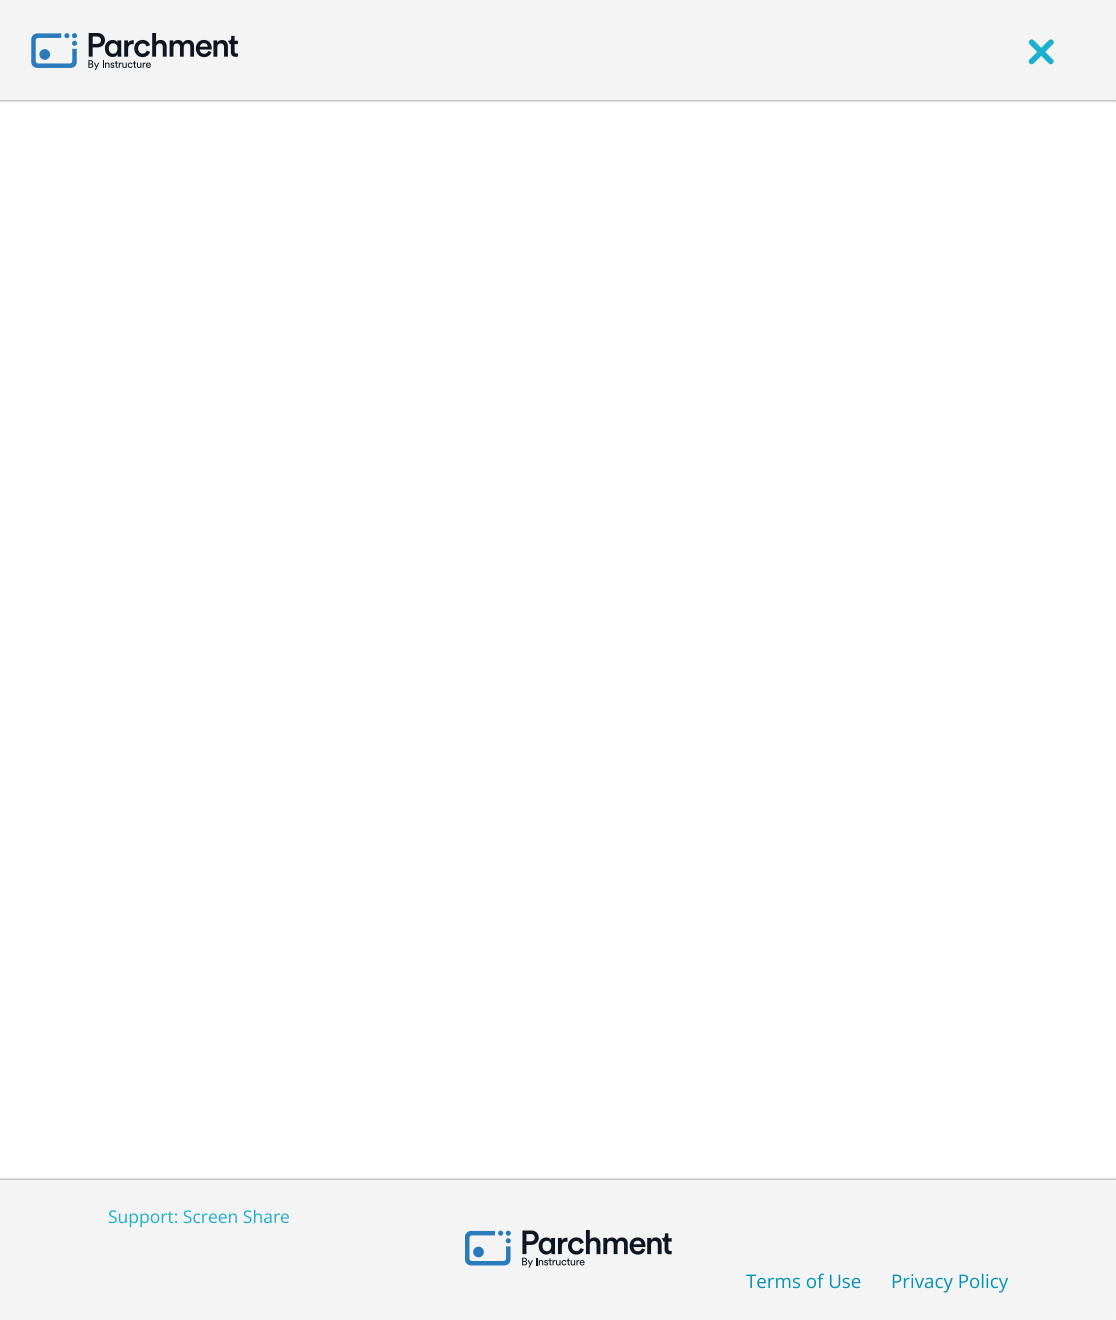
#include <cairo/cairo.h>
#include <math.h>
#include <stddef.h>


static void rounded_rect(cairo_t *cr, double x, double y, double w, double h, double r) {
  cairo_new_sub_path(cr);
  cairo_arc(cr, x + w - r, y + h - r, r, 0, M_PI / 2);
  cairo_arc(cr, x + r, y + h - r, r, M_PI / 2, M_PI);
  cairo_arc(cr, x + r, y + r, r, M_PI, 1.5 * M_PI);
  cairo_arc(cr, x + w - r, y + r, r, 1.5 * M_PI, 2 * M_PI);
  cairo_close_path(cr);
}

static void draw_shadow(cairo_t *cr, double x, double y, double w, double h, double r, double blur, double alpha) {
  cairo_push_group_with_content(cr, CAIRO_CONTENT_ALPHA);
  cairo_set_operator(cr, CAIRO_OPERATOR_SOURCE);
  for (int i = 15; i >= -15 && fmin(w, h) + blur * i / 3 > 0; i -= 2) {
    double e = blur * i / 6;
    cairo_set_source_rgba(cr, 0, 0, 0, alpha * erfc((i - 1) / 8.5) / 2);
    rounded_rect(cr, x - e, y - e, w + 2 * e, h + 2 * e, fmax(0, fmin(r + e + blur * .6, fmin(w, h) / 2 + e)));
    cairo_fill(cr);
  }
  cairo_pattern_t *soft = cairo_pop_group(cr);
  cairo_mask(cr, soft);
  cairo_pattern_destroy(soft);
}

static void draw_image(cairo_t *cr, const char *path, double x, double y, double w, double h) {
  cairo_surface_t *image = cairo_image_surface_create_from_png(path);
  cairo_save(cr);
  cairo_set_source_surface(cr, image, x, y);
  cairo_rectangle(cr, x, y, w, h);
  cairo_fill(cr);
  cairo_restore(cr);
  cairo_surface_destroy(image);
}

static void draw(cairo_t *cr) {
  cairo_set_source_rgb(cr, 1, 1, 1);
  cairo_paint(cr);
  cairo_set_source_rgb(cr, 0, 0, 0);
  draw_shadow(cr, 0, 1, 1116, 100, 0, 1, 0.24);
  draw_shadow(cr, 0, 1, 1116, 100, 0, 2, 0.12);
  cairo_set_source_rgb(cr, 244 / 255.0, 244 / 255.0, 244 / 255.0);
  cairo_rectangle(cr, 0, 0, 1116, 100);
  cairo_fill(cr);
  draw_image(cr, "images/1.png", 31, 33, 207, 37);
  draw_image(cr, "images/2.png", 1028, 39, 26, 26);
  cairo_set_source_rgb(cr, 0, 0, 0);
  draw_shadow(cr, 0, 1179, 1116, 140, 0, 1, 0.24);
  draw_shadow(cr, 0, 1179, 1116, 140, 0, 2, 0.12);
  cairo_set_source_rgb(cr, 244 / 255.0, 244 / 255.0, 244 / 255.0);
  cairo_new_path(cr);
  cairo_move_to(cr, 0, 1180);
  cairo_line_to(cr, 1116, 1180);
  cairo_line_to(cr, 1116, 1319);
  cairo_curve_to(cr, 1116, 1319.5, 1115.5, 1320, 1115, 1320);
  cairo_line_to(cr, 1, 1320);
  cairo_curve_to(cr, 0.5, 1320, 0, 1319.5, 0, 1319);
  cairo_close_path(cr);
  cairo_fill(cr);
  draw_image(cr, "images/3.png", 465, 1230, 207, 38);
  cairo_select_font_face(cr, "Open Sans", CAIRO_FONT_SLANT_NORMAL, CAIRO_FONT_WEIGHT_NORMAL);
  cairo_set_font_size(cr, 17.5);
  cairo_set_source_rgb(cr, 29 / 255.0, 175 / 255.0, 204 / 255.0);
  cairo_move_to(cr, 108, 1223);
  cairo_show_text(cr, "Support: Screen Share");
  cairo_set_font_size(cr, 18.75);
  cairo_set_source_rgb(cr, 0, 147 / 255.0, 178 / 255.0);
  cairo_move_to(cr, 746, 1288);
  cairo_show_text(cr, "Terms of Use");
  cairo_move_to(cr, 891, 1288);
  cairo_show_text(cr, "Privacy Policy");
}

int main(void) {
  cairo_surface_t *surface = cairo_image_surface_create(CAIRO_FORMAT_RGB24, 1116, 1320);
  cairo_t *cr = cairo_create(surface);
  cairo_font_options_t *options = cairo_font_options_create();
  cairo_font_options_set_hint_metrics(options, CAIRO_HINT_METRICS_OFF);
  cairo_font_options_set_hint_style(options, CAIRO_HINT_STYLE_NONE);
  cairo_set_font_options(cr, options);
  cairo_set_miter_limit(cr, 4);
  draw(cr);
  cairo_surface_write_to_png(surface, "out.png");
  cairo_font_options_destroy(options);
  cairo_destroy(cr);
  cairo_surface_destroy(surface);
  return 0;
}
